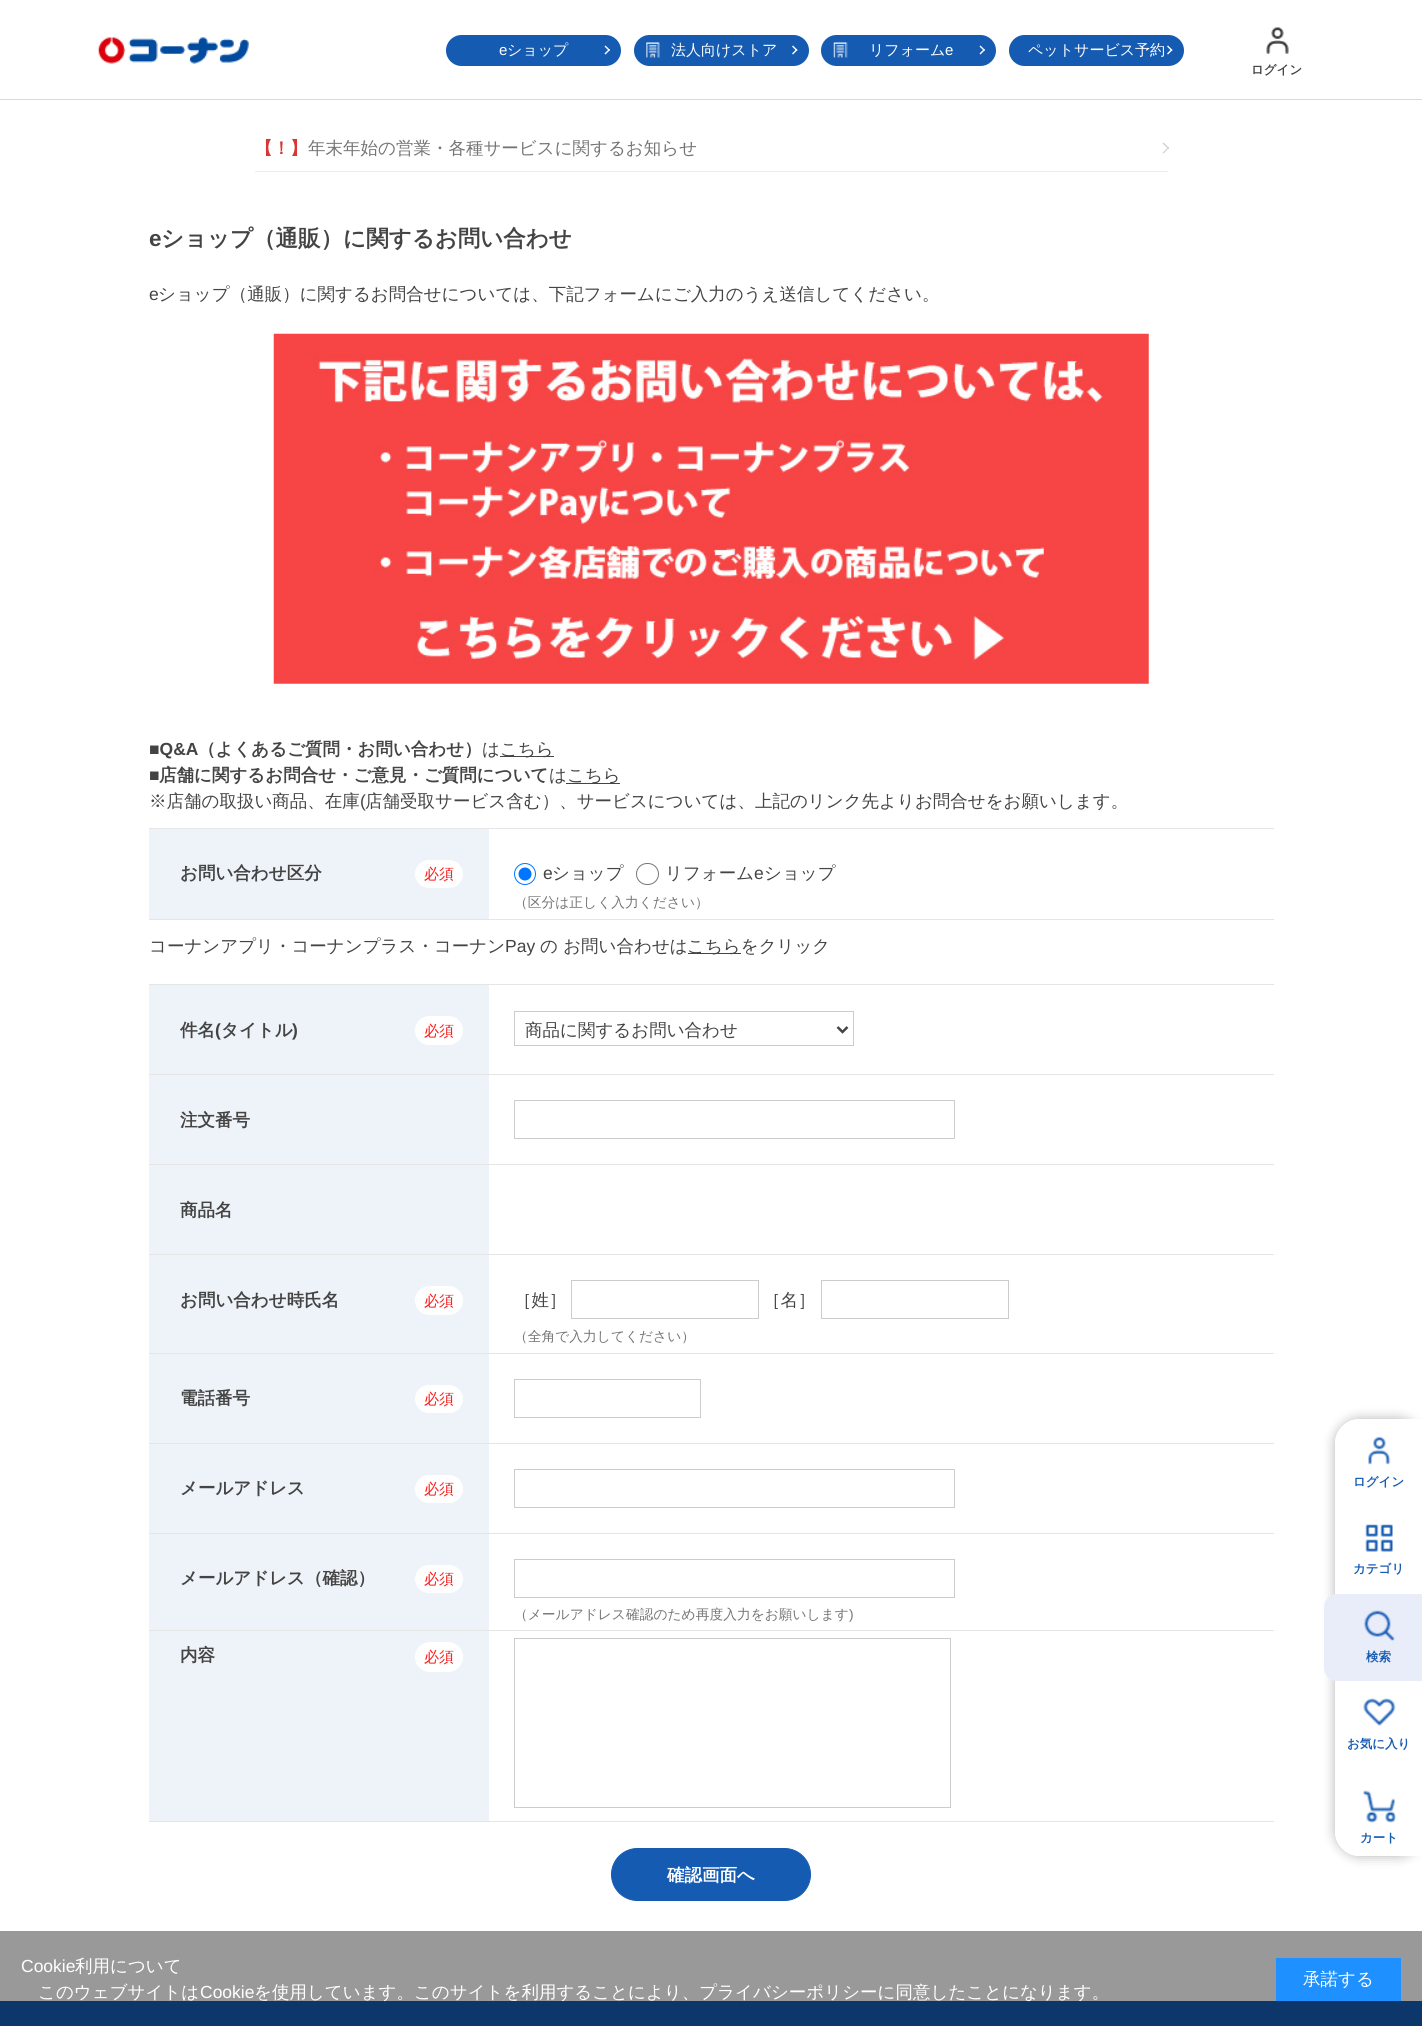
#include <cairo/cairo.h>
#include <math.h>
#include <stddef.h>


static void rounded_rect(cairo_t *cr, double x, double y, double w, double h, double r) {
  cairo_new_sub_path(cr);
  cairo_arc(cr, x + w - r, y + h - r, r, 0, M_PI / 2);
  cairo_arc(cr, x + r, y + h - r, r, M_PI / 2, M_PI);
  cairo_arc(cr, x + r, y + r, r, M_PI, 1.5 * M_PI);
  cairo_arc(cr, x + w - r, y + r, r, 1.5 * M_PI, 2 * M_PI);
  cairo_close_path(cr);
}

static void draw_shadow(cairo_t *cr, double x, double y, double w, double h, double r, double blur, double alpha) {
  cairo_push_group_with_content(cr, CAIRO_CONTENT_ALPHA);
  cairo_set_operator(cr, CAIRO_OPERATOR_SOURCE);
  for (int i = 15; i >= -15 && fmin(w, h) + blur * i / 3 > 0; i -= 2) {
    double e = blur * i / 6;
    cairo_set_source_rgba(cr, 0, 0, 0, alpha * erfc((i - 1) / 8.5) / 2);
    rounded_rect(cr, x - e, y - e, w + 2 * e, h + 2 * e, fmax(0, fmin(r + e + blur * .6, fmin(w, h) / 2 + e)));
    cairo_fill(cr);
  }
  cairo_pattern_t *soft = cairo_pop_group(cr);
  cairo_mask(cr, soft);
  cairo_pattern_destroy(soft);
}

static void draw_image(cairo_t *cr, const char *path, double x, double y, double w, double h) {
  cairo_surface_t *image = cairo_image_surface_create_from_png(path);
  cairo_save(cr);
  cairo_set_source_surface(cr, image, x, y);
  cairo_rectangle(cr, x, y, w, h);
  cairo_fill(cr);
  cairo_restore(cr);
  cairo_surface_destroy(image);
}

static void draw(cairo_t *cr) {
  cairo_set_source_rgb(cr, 1, 1, 1);
  cairo_paint(cr);
  cairo_set_source_rgb(cr, 153 / 255.0, 153 / 255.0, 153 / 255.0);
  cairo_rectangle(cr, 0, 1931, 1422, 70);
  cairo_fill(cr);
  cairo_set_source_rgb(cr, 218 / 255.0, 218 / 255.0, 218 / 255.0);
  cairo_rectangle(cr, 0, 99, 1422, 1);
  cairo_fill(cr);
  draw_image(cr, "images/1.png", 98, 37, 151, 27);
  cairo_set_source_rgb(cr, 22 / 255.0, 91 / 255.0, 178 / 255.0);
  rounded_rect(cr, 446, 35, 175, 31, 15.5);
  cairo_fill(cr);
  cairo_set_source_rgb(cr, 1, 1, 1);
  cairo_new_path(cr);
  cairo_move_to(cr, 605.5, 45.5);
  cairo_line_to(cr, 610, 50);
  cairo_line_to(cr, 609, 51);
  cairo_line_to(cr, 604.5, 46.5);
  cairo_close_path(cr);
  cairo_fill(cr);
  cairo_new_path(cr);
  cairo_move_to(cr, 609, 49);
  cairo_line_to(cr, 610, 50);
  cairo_line_to(cr, 605.5, 54.5);
  cairo_line_to(cr, 604.5, 53.5);
  cairo_close_path(cr);
  cairo_fill(cr);
  cairo_set_source_rgb(cr, 22 / 255.0, 91 / 255.0, 178 / 255.0);
  rounded_rect(cr, 634, 35, 175, 31, 15.5);
  cairo_fill(cr);
  draw_image(cr, "images/2.png", 646, 42, 14, 16);
  cairo_set_source_rgb(cr, 1, 1, 1);
  cairo_new_path(cr);
  cairo_move_to(cr, 793, 45.5);
  cairo_line_to(cr, 797.5, 50);
  cairo_line_to(cr, 796.5, 51);
  cairo_line_to(cr, 792, 46.5);
  cairo_close_path(cr);
  cairo_fill(cr);
  cairo_new_path(cr);
  cairo_move_to(cr, 796.5, 49);
  cairo_line_to(cr, 797.5, 50);
  cairo_line_to(cr, 793, 54.5);
  cairo_line_to(cr, 792, 53.5);
  cairo_close_path(cr);
  cairo_fill(cr);
  cairo_set_source_rgb(cr, 22 / 255.0, 91 / 255.0, 178 / 255.0);
  rounded_rect(cr, 821, 35, 175, 31, 15.5);
  cairo_fill(cr);
  draw_image(cr, "images/3.png", 833, 42, 15, 16);
  cairo_set_source_rgb(cr, 1, 1, 1);
  cairo_new_path(cr);
  cairo_move_to(cr, 980.5, 45.5);
  cairo_line_to(cr, 985, 50);
  cairo_line_to(cr, 984, 51);
  cairo_line_to(cr, 979.5, 46.5);
  cairo_close_path(cr);
  cairo_fill(cr);
  cairo_new_path(cr);
  cairo_move_to(cr, 984, 49);
  cairo_line_to(cr, 985, 50);
  cairo_line_to(cr, 980.5, 54.5);
  cairo_line_to(cr, 979.5, 53.5);
  cairo_close_path(cr);
  cairo_fill(cr);
  cairo_set_source_rgb(cr, 22 / 255.0, 91 / 255.0, 178 / 255.0);
  rounded_rect(cr, 1009, 35, 175, 31, 15.5);
  cairo_fill(cr);
  cairo_set_source_rgb(cr, 1, 1, 1);
  cairo_new_path(cr);
  cairo_move_to(cr, 1168, 45.5);
  cairo_line_to(cr, 1172.5, 50);
  cairo_line_to(cr, 1171.5, 51);
  cairo_line_to(cr, 1167, 46.5);
  cairo_close_path(cr);
  cairo_fill(cr);
  cairo_new_path(cr);
  cairo_move_to(cr, 1171.5, 49);
  cairo_line_to(cr, 1172.5, 50);
  cairo_line_to(cr, 1168, 54.5);
  cairo_line_to(cr, 1167, 53.5);
  cairo_close_path(cr);
  cairo_fill(cr);
  draw_image(cr, "images/4.png", 1266, 27, 23, 27);
  cairo_set_source_rgb(cr, 236 / 255.0, 236 / 255.0, 236 / 255.0);
  cairo_rectangle(cr, 255, 171, 913, 1);
  cairo_fill(cr);
  cairo_set_source_rgb(cr, 204 / 255.0, 204 / 255.0, 204 / 255.0);
  cairo_new_path(cr);
  cairo_move_to(cr, 1163.5, 142.5);
  cairo_line_to(cr, 1169, 148);
  cairo_line_to(cr, 1168.5, 149);
  cairo_line_to(cr, 1162.5, 143.5);
  cairo_close_path(cr);
  cairo_fill(cr);
  cairo_new_path(cr);
  cairo_move_to(cr, 1168.5, 147);
  cairo_line_to(cr, 1169, 148);
  cairo_line_to(cr, 1163.5, 153.5);
  cairo_line_to(cr, 1162.5, 153);
  cairo_close_path(cr);
  cairo_fill(cr);
  draw_image(cr, "images/5.png", 273, 333, 876, 351);
  cairo_set_source_rgb(cr, 68 / 255.0, 68 / 255.0, 68 / 255.0);
  cairo_rectangle(cr, 500, 756, 54, 1);
  cairo_fill(cr);
  cairo_rectangle(cr, 566, 783, 54, 1);
  cairo_fill(cr);
  cairo_set_source_rgb(cr, 229 / 255.0, 229 / 255.0, 229 / 255.0);
  cairo_rectangle(cr, 149, 828, 1125, 1);
  cairo_fill(cr);
  cairo_rectangle(cr, 149, 919, 1125, 1);
  cairo_fill(cr);
  cairo_set_source_rgb(cr, 238 / 255.0, 243 / 255.0, 249 / 255.0);
  cairo_rectangle(cr, 149, 829, 340, 90);
  cairo_fill(cr);
  cairo_set_source_rgb(cr, 1, 1, 1);
  rounded_rect(cr, 414.5, 859.5, 49, 29, 14.5);
  cairo_fill_preserve(cr);
  cairo_set_source_rgb(cr, 238 / 255.0, 243 / 255.0, 249 / 255.0);
  cairo_set_line_width(cr, 1);
  cairo_stroke(cr);
  cairo_arc(cr, 525, 874, 10.5, 0, 2 * M_PI);
  cairo_set_source_rgb(cr, 0, 117 / 255.0, 1);
  cairo_stroke(cr);
  cairo_arc(cr, 525, 874, 6.5, 0, 2 * M_PI);
  cairo_fill(cr);
  rounded_rect(cr, 636.5, 863.5, 22, 21, 10.5);
  cairo_set_source_rgb(cr, 118 / 255.0, 118 / 255.0, 118 / 255.0);
  cairo_stroke(cr);
  cairo_set_source_rgb(cr, 68 / 255.0, 68 / 255.0, 68 / 255.0);
  cairo_rectangle(cr, 688, 953, 53, 1);
  cairo_fill(cr);
  cairo_set_source_rgb(cr, 229 / 255.0, 229 / 255.0, 229 / 255.0);
  cairo_rectangle(cr, 149, 984, 1125, 1);
  cairo_fill(cr);
  cairo_set_source_rgb(cr, 238 / 255.0, 243 / 255.0, 249 / 255.0);
  cairo_rectangle(cr, 149, 985, 340, 89);
  cairo_fill(cr);
  cairo_set_source_rgb(cr, 1, 1, 1);
  rounded_rect(cr, 414.5, 1015.5, 49, 30, 15);
  cairo_fill_preserve(cr);
  cairo_set_source_rgb(cr, 238 / 255.0, 243 / 255.0, 249 / 255.0);
  cairo_stroke(cr);
  cairo_rectangle(cr, 514.5, 1011.5, 339, 34);
  cairo_set_source_rgb(cr, 204 / 255.0, 204 / 255.0, 204 / 255.0);
  cairo_stroke(cr);
  cairo_new_path(cr);
  cairo_move_to(cr, 837.5, 1027);
  cairo_line_to(cr, 842.5, 1032);
  cairo_line_to(cr, 847.5, 1027);
  cairo_set_source_rgb(cr, 68 / 255.0, 68 / 255.0, 68 / 255.0);
  cairo_set_line_width(cr, 2.5);
  cairo_stroke(cr);
  cairo_set_source_rgb(cr, 229 / 255.0, 229 / 255.0, 229 / 255.0);
  cairo_rectangle(cr, 149, 1074, 1125, 1);
  cairo_fill(cr);
  cairo_set_source_rgb(cr, 238 / 255.0, 243 / 255.0, 249 / 255.0);
  cairo_rectangle(cr, 149, 1075, 340, 89);
  cairo_fill(cr);
  cairo_rectangle(cr, 514.5, 1100.5, 440, 38);
  cairo_set_source_rgb(cr, 204 / 255.0, 204 / 255.0, 204 / 255.0);
  cairo_set_line_width(cr, 1);
  cairo_stroke(cr);
  cairo_set_source_rgb(cr, 229 / 255.0, 229 / 255.0, 229 / 255.0);
  cairo_rectangle(cr, 149, 1164, 1125, 1);
  cairo_fill(cr);
  cairo_set_source_rgb(cr, 238 / 255.0, 243 / 255.0, 249 / 255.0);
  cairo_rectangle(cr, 149, 1165, 340, 89);
  cairo_fill(cr);
  cairo_set_source_rgb(cr, 229 / 255.0, 229 / 255.0, 229 / 255.0);
  cairo_rectangle(cr, 149, 1254, 1125, 1);
  cairo_fill(cr);
  cairo_set_source_rgb(cr, 238 / 255.0, 243 / 255.0, 249 / 255.0);
  cairo_rectangle(cr, 149, 1255, 340, 98);
  cairo_fill(cr);
  cairo_set_source_rgb(cr, 1, 1, 1);
  rounded_rect(cr, 414.5, 1285.5, 49, 30, 15);
  cairo_fill_preserve(cr);
  cairo_set_source_rgb(cr, 238 / 255.0, 243 / 255.0, 249 / 255.0);
  cairo_stroke(cr);
  cairo_rectangle(cr, 571.5, 1280.5, 187, 38);
  cairo_set_source_rgb(cr, 204 / 255.0, 204 / 255.0, 204 / 255.0);
  cairo_stroke(cr);
  cairo_rectangle(cr, 821.5, 1280.5, 187, 38);
  cairo_stroke(cr);
  cairo_set_source_rgb(cr, 229 / 255.0, 229 / 255.0, 229 / 255.0);
  cairo_rectangle(cr, 149, 1353, 1125, 1);
  cairo_fill(cr);
  cairo_set_source_rgb(cr, 238 / 255.0, 243 / 255.0, 249 / 255.0);
  cairo_rectangle(cr, 149, 1354, 340, 89);
  cairo_fill(cr);
  cairo_set_source_rgb(cr, 1, 1, 1);
  rounded_rect(cr, 414.5, 1384.5, 49, 29, 14.5);
  cairo_fill_preserve(cr);
  cairo_set_source_rgb(cr, 238 / 255.0, 243 / 255.0, 249 / 255.0);
  cairo_stroke(cr);
  cairo_rectangle(cr, 514.5, 1379.5, 186, 38);
  cairo_set_source_rgb(cr, 204 / 255.0, 204 / 255.0, 204 / 255.0);
  cairo_stroke(cr);
  cairo_set_source_rgb(cr, 229 / 255.0, 229 / 255.0, 229 / 255.0);
  cairo_rectangle(cr, 149, 1443, 1125, 1);
  cairo_fill(cr);
  cairo_set_source_rgb(cr, 238 / 255.0, 243 / 255.0, 249 / 255.0);
  cairo_rectangle(cr, 149, 1444, 340, 89);
  cairo_fill(cr);
  cairo_set_source_rgb(cr, 1, 1, 1);
  rounded_rect(cr, 414.5, 1474.5, 49, 29, 14.5);
  cairo_fill_preserve(cr);
  cairo_set_source_rgb(cr, 238 / 255.0, 243 / 255.0, 249 / 255.0);
  cairo_stroke(cr);
  cairo_rectangle(cr, 514.5, 1469.5, 440, 38);
  cairo_set_source_rgb(cr, 204 / 255.0, 204 / 255.0, 204 / 255.0);
  cairo_stroke(cr);
  cairo_set_source_rgb(cr, 229 / 255.0, 229 / 255.0, 229 / 255.0);
  cairo_rectangle(cr, 149, 1533, 1125, 1);
  cairo_fill(cr);
  cairo_set_source_rgb(cr, 238 / 255.0, 243 / 255.0, 249 / 255.0);
  cairo_rectangle(cr, 149, 1534, 340, 96);
  cairo_fill(cr);
  cairo_set_source_rgb(cr, 1, 1, 1);
  rounded_rect(cr, 414.5, 1564.5, 49, 29, 14.5);
  cairo_fill_preserve(cr);
  cairo_set_source_rgb(cr, 238 / 255.0, 243 / 255.0, 249 / 255.0);
  cairo_stroke(cr);
  cairo_rectangle(cr, 514.5, 1559.5, 440, 38);
  cairo_set_source_rgb(cr, 204 / 255.0, 204 / 255.0, 204 / 255.0);
  cairo_stroke(cr);
  cairo_set_source_rgb(cr, 229 / 255.0, 229 / 255.0, 229 / 255.0);
  cairo_rectangle(cr, 149, 1630, 1125, 1);
  cairo_fill(cr);
  cairo_rectangle(cr, 149, 1821, 1125, 1);
  cairo_fill(cr);
  cairo_set_source_rgb(cr, 238 / 255.0, 243 / 255.0, 249 / 255.0);
  cairo_rectangle(cr, 149, 1631, 340, 190);
  cairo_fill(cr);
  cairo_set_source_rgb(cr, 1, 1, 1);
  rounded_rect(cr, 414.5, 1641.5, 49, 31, 15.5);
  cairo_fill_preserve(cr);
  cairo_set_source_rgb(cr, 238 / 255.0, 243 / 255.0, 249 / 255.0);
  cairo_stroke(cr);
  cairo_rectangle(cr, 514.5, 1638.5, 436, 169);
  cairo_set_source_rgb(cr, 204 / 255.0, 204 / 255.0, 204 / 255.0);
  cairo_stroke(cr);
  cairo_set_source_rgb(cr, 22 / 255.0, 91 / 255.0, 178 / 255.0);
  rounded_rect(cr, 611.5, 1848.5, 199, 52, 26);
  cairo_fill_preserve(cr);
  cairo_stroke(cr);
  cairo_set_source_rgb(cr, 13 / 255.0, 55 / 255.0, 107 / 255.0);
  cairo_rectangle(cr, 0, 2001, 1422, 25);
  cairo_fill(cr);
  cairo_save(cr);
  cairo_set_fill_rule(cr, CAIRO_FILL_RULE_EVEN_ODD);
  cairo_new_path(cr);
  cairo_move_to(cr, 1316, 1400);
  cairo_line_to(cr, 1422, 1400);
  cairo_line_to(cr, 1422, 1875);
  cairo_line_to(cr, 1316, 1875);
  cairo_close_path(cr);
  cairo_move_to(cr, 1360, 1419);
  cairo_line_to(cr, 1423, 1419);
  cairo_line_to(cr, 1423, 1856);
  cairo_line_to(cr, 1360, 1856);
  cairo_curve_to(cr, 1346, 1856, 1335, 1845, 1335, 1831);
  cairo_line_to(cr, 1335, 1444);
  cairo_curve_to(cr, 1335, 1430, 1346, 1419, 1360, 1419);
  cairo_close_path(cr);
  cairo_clip(cr);
  cairo_set_source_rgb(cr, 0, 0, 0);
  draw_shadow(cr, 1335, 1419, 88, 437, 25, 6, 0.3);
  cairo_restore(cr);
  cairo_set_source_rgba(cr, 1, 1, 1, 0.95);
  cairo_new_path(cr);
  cairo_move_to(cr, 1360, 1419);
  cairo_line_to(cr, 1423, 1419);
  cairo_line_to(cr, 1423, 1856);
  cairo_line_to(cr, 1360, 1856);
  cairo_curve_to(cr, 1346, 1856, 1335, 1845, 1335, 1831);
  cairo_line_to(cr, 1335, 1444);
  cairo_curve_to(cr, 1335, 1430, 1346, 1419, 1360, 1419);
  cairo_close_path(cr);
  cairo_fill(cr);
  draw_image(cr, "images/6.png", 1368, 1436, 23, 29);
  draw_image(cr, "images/7.png", 1365, 1524, 28, 28);
  cairo_set_source_rgb(cr, 232 / 255.0, 237 / 255.0, 249 / 255.0);
  cairo_rectangle(cr, 1335, 1594, 87, 87);
  cairo_fill(cr);
  cairo_new_path(cr);
  cairo_move_to(cr, 1337, 1594);
  cairo_line_to(cr, 1338, 1594);
  cairo_line_to(cr, 1338, 1681);
  cairo_line_to(cr, 1337, 1681);
  cairo_curve_to(cr, 1330, 1681, 1324, 1675, 1324, 1668);
  cairo_line_to(cr, 1324, 1607);
  cairo_curve_to(cr, 1324, 1600, 1330, 1594, 1337, 1594);
  cairo_close_path(cr);
  cairo_fill(cr);
  draw_image(cr, "images/8.png", 1364, 1610, 31, 31);
  draw_image(cr, "images/9.png", 1363, 1698, 33, 28);
  draw_image(cr, "images/10.png", 1363, 1790, 33, 33);
  cairo_set_source_rgb(cr, 30 / 255.0, 144 / 255.0, 1);
  cairo_rectangle(cr, 1276, 1958, 125, 43);
  cairo_fill(cr);
  cairo_select_font_face(cr, "Liberation Sans", CAIRO_FONT_SLANT_NORMAL, CAIRO_FONT_WEIGHT_NORMAL);
  cairo_set_font_size(cr, 15);
  cairo_set_source_rgb(cr, 1, 1, 1);
  cairo_move_to(cr, 499, 55);
  cairo_show_text(cr, "e");
  cairo_select_font_face(cr, "WenQuanYi Zen Hei Medium", CAIRO_FONT_SLANT_NORMAL, CAIRO_FONT_WEIGHT_NORMAL);
  cairo_move_to(cr, 507, 55);
  cairo_show_text(cr, "ショップ");
  cairo_move_to(cr, 671, 55);
  cairo_show_text(cr, "法人向けストア");
  cairo_move_to(cr, 869, 55);
  cairo_show_text(cr, "リフォーム");
  cairo_select_font_face(cr, "Liberation Sans", CAIRO_FONT_SLANT_NORMAL, CAIRO_FONT_WEIGHT_NORMAL);
  cairo_move_to(cr, 945, 55);
  cairo_show_text(cr, "e");
  cairo_select_font_face(cr, "WenQuanYi Zen Hei Medium", CAIRO_FONT_SLANT_NORMAL, CAIRO_FONT_WEIGHT_NORMAL);
  cairo_move_to(cr, 1028, 55);
  cairo_show_text(cr, "ペットサービス予約");
  cairo_select_font_face(cr, "WenQuanYi Zen Hei", CAIRO_FONT_SLANT_NORMAL, CAIRO_FONT_WEIGHT_BOLD);
  cairo_set_font_size(cr, 12.5);
  cairo_set_source_rgb(cr, 68 / 255.0, 68 / 255.0, 68 / 255.0);
  cairo_move_to(cr, 1251, 74);
  cairo_show_text(cr, "ログイン");
  cairo_set_font_size(cr, 17.5);
  cairo_set_source_rgb(cr, 216 / 255.0, 54 / 255.0, 54 / 255.0);
  cairo_move_to(cr, 255, 154);
  cairo_show_text(cr, "【！】");
  cairo_select_font_face(cr, "WenQuanYi Zen Hei Medium", CAIRO_FONT_SLANT_NORMAL, CAIRO_FONT_WEIGHT_NORMAL);
  cairo_set_source_rgb(cr, 117 / 255.0, 117 / 255.0, 117 / 255.0);
  cairo_move_to(cr, 308, 154);
  cairo_show_text(cr, "年末年始の営業・各種サービスに関するお知らせ");
  cairo_select_font_face(cr, "Liberation Sans", CAIRO_FONT_SLANT_NORMAL, CAIRO_FONT_WEIGHT_BOLD);
  cairo_set_font_size(cr, 22.5);
  cairo_set_source_rgb(cr, 68 / 255.0, 68 / 255.0, 68 / 255.0);
  cairo_move_to(cr, 149, 246);
  cairo_show_text(cr, "e");
  cairo_select_font_face(cr, "WenQuanYi Zen Hei", CAIRO_FONT_SLANT_NORMAL, CAIRO_FONT_WEIGHT_BOLD);
  cairo_move_to(cr, 161, 246);
  cairo_show_text(cr, "ショップ（通販）に関するお問い合わせ");
  cairo_select_font_face(cr, "Liberation Sans", CAIRO_FONT_SLANT_NORMAL, CAIRO_FONT_WEIGHT_NORMAL);
  cairo_set_font_size(cr, 17.5);
  cairo_move_to(cr, 149, 300);
  cairo_show_text(cr, "e");
  cairo_select_font_face(cr, "WenQuanYi Zen Hei Medium", CAIRO_FONT_SLANT_NORMAL, CAIRO_FONT_WEIGHT_NORMAL);
  cairo_move_to(cr, 158, 300);
  cairo_show_text(cr, "ショップ（通販）に関するお問合せについては、下記フォームにご入力のうえ送信してください。");
  cairo_select_font_face(cr, "Liberation Sans", CAIRO_FONT_SLANT_NORMAL, CAIRO_FONT_WEIGHT_BOLD);
  cairo_move_to(cr, 149, 755);
  cairo_show_text(cr, "■Q&A");
  cairo_select_font_face(cr, "WenQuanYi Zen Hei", CAIRO_FONT_SLANT_NORMAL, CAIRO_FONT_WEIGHT_BOLD);
  cairo_move_to(cr, 198, 755);
  cairo_show_text(cr, "（よくあるご質問・お問い合わせ）");
  cairo_select_font_face(cr, "WenQuanYi Zen Hei Medium", CAIRO_FONT_SLANT_NORMAL, CAIRO_FONT_WEIGHT_NORMAL);
  cairo_move_to(cr, 482, 755);
  cairo_show_text(cr, "は");
  cairo_move_to(cr, 500, 755);
  cairo_show_text(cr, "こちら");
  cairo_select_font_face(cr, "Liberation Sans", CAIRO_FONT_SLANT_NORMAL, CAIRO_FONT_WEIGHT_BOLD);
  cairo_move_to(cr, 149, 781);
  cairo_show_text(cr, "■");
  cairo_select_font_face(cr, "WenQuanYi Zen Hei", CAIRO_FONT_SLANT_NORMAL, CAIRO_FONT_WEIGHT_BOLD);
  cairo_move_to(cr, 159, 781);
  cairo_show_text(cr, "店舗に関するお問合せ・ご意見・ご質問について");
  cairo_select_font_face(cr, "WenQuanYi Zen Hei Medium", CAIRO_FONT_SLANT_NORMAL, CAIRO_FONT_WEIGHT_NORMAL);
  cairo_move_to(cr, 549, 781);
  cairo_show_text(cr, "は");
  cairo_move_to(cr, 567, 781);
  cairo_show_text(cr, "こちら");
  cairo_move_to(cr, 149, 807);
  cairo_show_text(cr, "※店舗の取扱い商品、在庫");
  cairo_select_font_face(cr, "Liberation Sans", CAIRO_FONT_SLANT_NORMAL, CAIRO_FONT_WEIGHT_NORMAL);
  cairo_move_to(cr, 360, 807);
  cairo_show_text(cr, "(");
  cairo_select_font_face(cr, "WenQuanYi Zen Hei Medium", CAIRO_FONT_SLANT_NORMAL, CAIRO_FONT_WEIGHT_NORMAL);
  cairo_move_to(cr, 365, 807);
  cairo_show_text(cr, "店舗受取サービス含む）、サービスについては、上記のリンク先よりお問合せをお願いします。");
  cairo_select_font_face(cr, "WenQuanYi Zen Hei", CAIRO_FONT_SLANT_NORMAL, CAIRO_FONT_WEIGHT_BOLD);
  cairo_move_to(cr, 180, 879);
  cairo_show_text(cr, "お問い合わせ区分");
  cairo_select_font_face(cr, "WenQuanYi Zen Hei Medium", CAIRO_FONT_SLANT_NORMAL, CAIRO_FONT_WEIGHT_NORMAL);
  cairo_set_font_size(cr, 15);
  cairo_set_source_rgb(cr, 251 / 255.0, 29 / 255.0, 27 / 255.0);
  cairo_move_to(cr, 424, 879);
  cairo_show_text(cr, "必須");
  cairo_select_font_face(cr, "Liberation Sans", CAIRO_FONT_SLANT_NORMAL, CAIRO_FONT_WEIGHT_NORMAL);
  cairo_set_font_size(cr, 17.5);
  cairo_set_source_rgb(cr, 68 / 255.0, 68 / 255.0, 68 / 255.0);
  cairo_move_to(cr, 543, 879);
  cairo_show_text(cr, "e");
  cairo_select_font_face(cr, "WenQuanYi Zen Hei Medium", CAIRO_FONT_SLANT_NORMAL, CAIRO_FONT_WEIGHT_NORMAL);
  cairo_move_to(cr, 552, 879);
  cairo_show_text(cr, "ショップ");
  cairo_move_to(cr, 665, 879);
  cairo_show_text(cr, "リフォーム");
  cairo_select_font_face(cr, "Liberation Sans", CAIRO_FONT_SLANT_NORMAL, CAIRO_FONT_WEIGHT_NORMAL);
  cairo_move_to(cr, 754, 879);
  cairo_show_text(cr, "e");
  cairo_select_font_face(cr, "WenQuanYi Zen Hei Medium", CAIRO_FONT_SLANT_NORMAL, CAIRO_FONT_WEIGHT_NORMAL);
  cairo_move_to(cr, 764, 879);
  cairo_show_text(cr, "ショップ");
  cairo_set_font_size(cr, 13.75);
  cairo_set_source_rgb(cr, 117 / 255.0, 117 / 255.0, 117 / 255.0);
  cairo_move_to(cr, 514, 907);
  cairo_show_text(cr, "（区分は正しく入力ください）");
  cairo_set_font_size(cr, 17.5);
  cairo_set_source_rgb(cr, 68 / 255.0, 68 / 255.0, 68 / 255.0);
  cairo_move_to(cr, 149, 952);
  cairo_show_text(cr, "コーナンアプリ・コーナンプラス・コーナン");
  cairo_select_font_face(cr, "Liberation Sans", CAIRO_FONT_SLANT_NORMAL, CAIRO_FONT_WEIGHT_NORMAL);
  cairo_move_to(cr, 505, 952);
  cairo_show_text(cr, "Pay");
  cairo_select_font_face(cr, "WenQuanYi Zen Hei Medium", CAIRO_FONT_SLANT_NORMAL, CAIRO_FONT_WEIGHT_NORMAL);
  cairo_move_to(cr, 540, 952);
  cairo_show_text(cr, "の お問い合わせは");
  cairo_move_to(cr, 687, 952);
  cairo_show_text(cr, "こちらをクリック");
  cairo_select_font_face(cr, "WenQuanYi Zen Hei", CAIRO_FONT_SLANT_NORMAL, CAIRO_FONT_WEIGHT_BOLD);
  cairo_move_to(cr, 180, 1036);
  cairo_show_text(cr, "件名");
  cairo_select_font_face(cr, "Liberation Sans", CAIRO_FONT_SLANT_NORMAL, CAIRO_FONT_WEIGHT_BOLD);
  cairo_move_to(cr, 215, 1036);
  cairo_show_text(cr, "(");
  cairo_select_font_face(cr, "WenQuanYi Zen Hei", CAIRO_FONT_SLANT_NORMAL, CAIRO_FONT_WEIGHT_BOLD);
  cairo_move_to(cr, 221, 1036);
  cairo_show_text(cr, "タイトル");
  cairo_select_font_face(cr, "Liberation Sans", CAIRO_FONT_SLANT_NORMAL, CAIRO_FONT_WEIGHT_BOLD);
  cairo_move_to(cr, 292, 1036);
  cairo_show_text(cr, ")");
  cairo_select_font_face(cr, "WenQuanYi Zen Hei Medium", CAIRO_FONT_SLANT_NORMAL, CAIRO_FONT_WEIGHT_NORMAL);
  cairo_set_font_size(cr, 15);
  cairo_set_source_rgb(cr, 251 / 255.0, 29 / 255.0, 27 / 255.0);
  cairo_move_to(cr, 424, 1036);
  cairo_show_text(cr, "必須");
  cairo_set_font_size(cr, 17.5);
  cairo_set_source_rgb(cr, 68 / 255.0, 68 / 255.0, 68 / 255.0);
  cairo_move_to(cr, 525, 1036);
  cairo_show_text(cr, "商品に関するお問い合わせ");
  cairo_select_font_face(cr, "WenQuanYi Zen Hei", CAIRO_FONT_SLANT_NORMAL, CAIRO_FONT_WEIGHT_BOLD);
  cairo_move_to(cr, 180, 1126);
  cairo_show_text(cr, "注文番号");
  cairo_move_to(cr, 180, 1216);
  cairo_show_text(cr, "商品名");
  cairo_move_to(cr, 180, 1306);
  cairo_show_text(cr, "お問い合わせ時氏名");
  cairo_select_font_face(cr, "WenQuanYi Zen Hei Medium", CAIRO_FONT_SLANT_NORMAL, CAIRO_FONT_WEIGHT_NORMAL);
  cairo_set_font_size(cr, 15);
  cairo_set_source_rgb(cr, 251 / 255.0, 29 / 255.0, 27 / 255.0);
  cairo_move_to(cr, 424, 1306);
  cairo_show_text(cr, "必須");
  cairo_set_font_size(cr, 17.5);
  cairo_set_source_rgb(cr, 68 / 255.0, 68 / 255.0, 68 / 255.0);
  cairo_move_to(cr, 514, 1306);
  cairo_show_text(cr, "［姓］");
  cairo_move_to(cr, 763, 1306);
  cairo_show_text(cr, "［名］");
  cairo_set_font_size(cr, 13.75);
  cairo_set_source_rgb(cr, 117 / 255.0, 117 / 255.0, 117 / 255.0);
  cairo_move_to(cr, 514, 1341);
  cairo_show_text(cr, "（全角で入力してください）");
  cairo_select_font_face(cr, "WenQuanYi Zen Hei", CAIRO_FONT_SLANT_NORMAL, CAIRO_FONT_WEIGHT_BOLD);
  cairo_set_font_size(cr, 17.5);
  cairo_set_source_rgb(cr, 68 / 255.0, 68 / 255.0, 68 / 255.0);
  cairo_move_to(cr, 180, 1404);
  cairo_show_text(cr, "電話番号");
  cairo_select_font_face(cr, "WenQuanYi Zen Hei Medium", CAIRO_FONT_SLANT_NORMAL, CAIRO_FONT_WEIGHT_NORMAL);
  cairo_set_font_size(cr, 15);
  cairo_set_source_rgb(cr, 251 / 255.0, 29 / 255.0, 27 / 255.0);
  cairo_move_to(cr, 424, 1404);
  cairo_show_text(cr, "必須");
  cairo_select_font_face(cr, "WenQuanYi Zen Hei", CAIRO_FONT_SLANT_NORMAL, CAIRO_FONT_WEIGHT_BOLD);
  cairo_set_font_size(cr, 17.5);
  cairo_set_source_rgb(cr, 68 / 255.0, 68 / 255.0, 68 / 255.0);
  cairo_move_to(cr, 180, 1494);
  cairo_show_text(cr, "メールアドレス");
  cairo_select_font_face(cr, "WenQuanYi Zen Hei Medium", CAIRO_FONT_SLANT_NORMAL, CAIRO_FONT_WEIGHT_NORMAL);
  cairo_set_font_size(cr, 15);
  cairo_set_source_rgb(cr, 251 / 255.0, 29 / 255.0, 27 / 255.0);
  cairo_move_to(cr, 424, 1494);
  cairo_show_text(cr, "必須");
  cairo_select_font_face(cr, "WenQuanYi Zen Hei", CAIRO_FONT_SLANT_NORMAL, CAIRO_FONT_WEIGHT_BOLD);
  cairo_set_font_size(cr, 17.5);
  cairo_set_source_rgb(cr, 68 / 255.0, 68 / 255.0, 68 / 255.0);
  cairo_move_to(cr, 180, 1584);
  cairo_show_text(cr, "メールアドレス（確認）");
  cairo_select_font_face(cr, "WenQuanYi Zen Hei Medium", CAIRO_FONT_SLANT_NORMAL, CAIRO_FONT_WEIGHT_NORMAL);
  cairo_set_font_size(cr, 15);
  cairo_set_source_rgb(cr, 251 / 255.0, 29 / 255.0, 27 / 255.0);
  cairo_move_to(cr, 424, 1584);
  cairo_show_text(cr, "必須");
  cairo_set_font_size(cr, 13.75);
  cairo_set_source_rgb(cr, 117 / 255.0, 117 / 255.0, 117 / 255.0);
  cairo_move_to(cr, 514, 1619);
  cairo_show_text(cr, "（メールアドレス確認のため再度入力をお願いします");
  cairo_select_font_face(cr, "Liberation Sans", CAIRO_FONT_SLANT_NORMAL, CAIRO_FONT_WEIGHT_NORMAL);
  cairo_move_to(cr, 849, 1619);
  cairo_show_text(cr, ")");
  cairo_select_font_face(cr, "WenQuanYi Zen Hei", CAIRO_FONT_SLANT_NORMAL, CAIRO_FONT_WEIGHT_BOLD);
  cairo_set_font_size(cr, 17.5);
  cairo_set_source_rgb(cr, 68 / 255.0, 68 / 255.0, 68 / 255.0);
  cairo_move_to(cr, 180, 1661);
  cairo_show_text(cr, "内容");
  cairo_select_font_face(cr, "WenQuanYi Zen Hei Medium", CAIRO_FONT_SLANT_NORMAL, CAIRO_FONT_WEIGHT_NORMAL);
  cairo_set_font_size(cr, 15);
  cairo_set_source_rgb(cr, 251 / 255.0, 29 / 255.0, 27 / 255.0);
  cairo_move_to(cr, 424, 1662);
  cairo_show_text(cr, "必須");
  cairo_select_font_face(cr, "WenQuanYi Zen Hei", CAIRO_FONT_SLANT_NORMAL, CAIRO_FONT_WEIGHT_BOLD);
  cairo_set_font_size(cr, 17.5);
  cairo_set_source_rgb(cr, 1, 1, 1);
  cairo_move_to(cr, 667, 1881);
  cairo_show_text(cr, "確認画面へ");
  cairo_set_font_size(cr, 12.5);
  cairo_set_source_rgb(cr, 22 / 255.0, 91 / 255.0, 178 / 255.0);
  cairo_move_to(cr, 1353, 1486);
  cairo_show_text(cr, "ログイン");
  cairo_move_to(cr, 1353, 1573);
  cairo_show_text(cr, "カテゴリ");
  cairo_move_to(cr, 1366, 1661);
  cairo_show_text(cr, "検索");
  cairo_move_to(cr, 1347, 1748);
  cairo_show_text(cr, "お気に入り");
  cairo_move_to(cr, 1360, 1842);
  cairo_show_text(cr, "カート");
  cairo_select_font_face(cr, "Liberation Sans", CAIRO_FONT_SLANT_NORMAL, CAIRO_FONT_WEIGHT_NORMAL);
  cairo_set_font_size(cr, 17.5);
  cairo_set_source_rgb(cr, 1, 1, 1);
  cairo_move_to(cr, 21, 1972);
  cairo_show_text(cr, "Cookie");
  cairo_select_font_face(cr, "WenQuanYi Zen Hei Medium", CAIRO_FONT_SLANT_NORMAL, CAIRO_FONT_WEIGHT_NORMAL);
  cairo_move_to(cr, 75, 1972);
  cairo_show_text(cr, "利用について");
  cairo_move_to(cr, 38, 1998);
  cairo_show_text(cr, "このウェブサイトは");
  cairo_select_font_face(cr, "Liberation Sans", CAIRO_FONT_SLANT_NORMAL, CAIRO_FONT_WEIGHT_NORMAL);
  cairo_move_to(cr, 200, 1998);
  cairo_show_text(cr, "Cookie");
  cairo_select_font_face(cr, "WenQuanYi Zen Hei Medium", CAIRO_FONT_SLANT_NORMAL, CAIRO_FONT_WEIGHT_NORMAL);
  cairo_move_to(cr, 254, 1998);
  cairo_show_text(cr, "を使用しています。このサイトを利用することにより、プライバシーポリシーに同意したことになります。");
  cairo_move_to(cr, 1303, 1985);
  cairo_show_text(cr, "承諾する");
}

int main(void) {
  cairo_surface_t *surface = cairo_image_surface_create(CAIRO_FORMAT_RGB24, 1422, 2026);
  cairo_t *cr = cairo_create(surface);
  cairo_font_options_t *options = cairo_font_options_create();
  cairo_font_options_set_hint_metrics(options, CAIRO_HINT_METRICS_OFF);
  cairo_font_options_set_hint_style(options, CAIRO_HINT_STYLE_NONE);
  cairo_set_font_options(cr, options);
  cairo_set_miter_limit(cr, 4);
  draw(cr);
  cairo_surface_write_to_png(surface, "out.png");
  cairo_font_options_destroy(options);
  cairo_destroy(cr);
  cairo_surface_destroy(surface);
  return 0;
}
